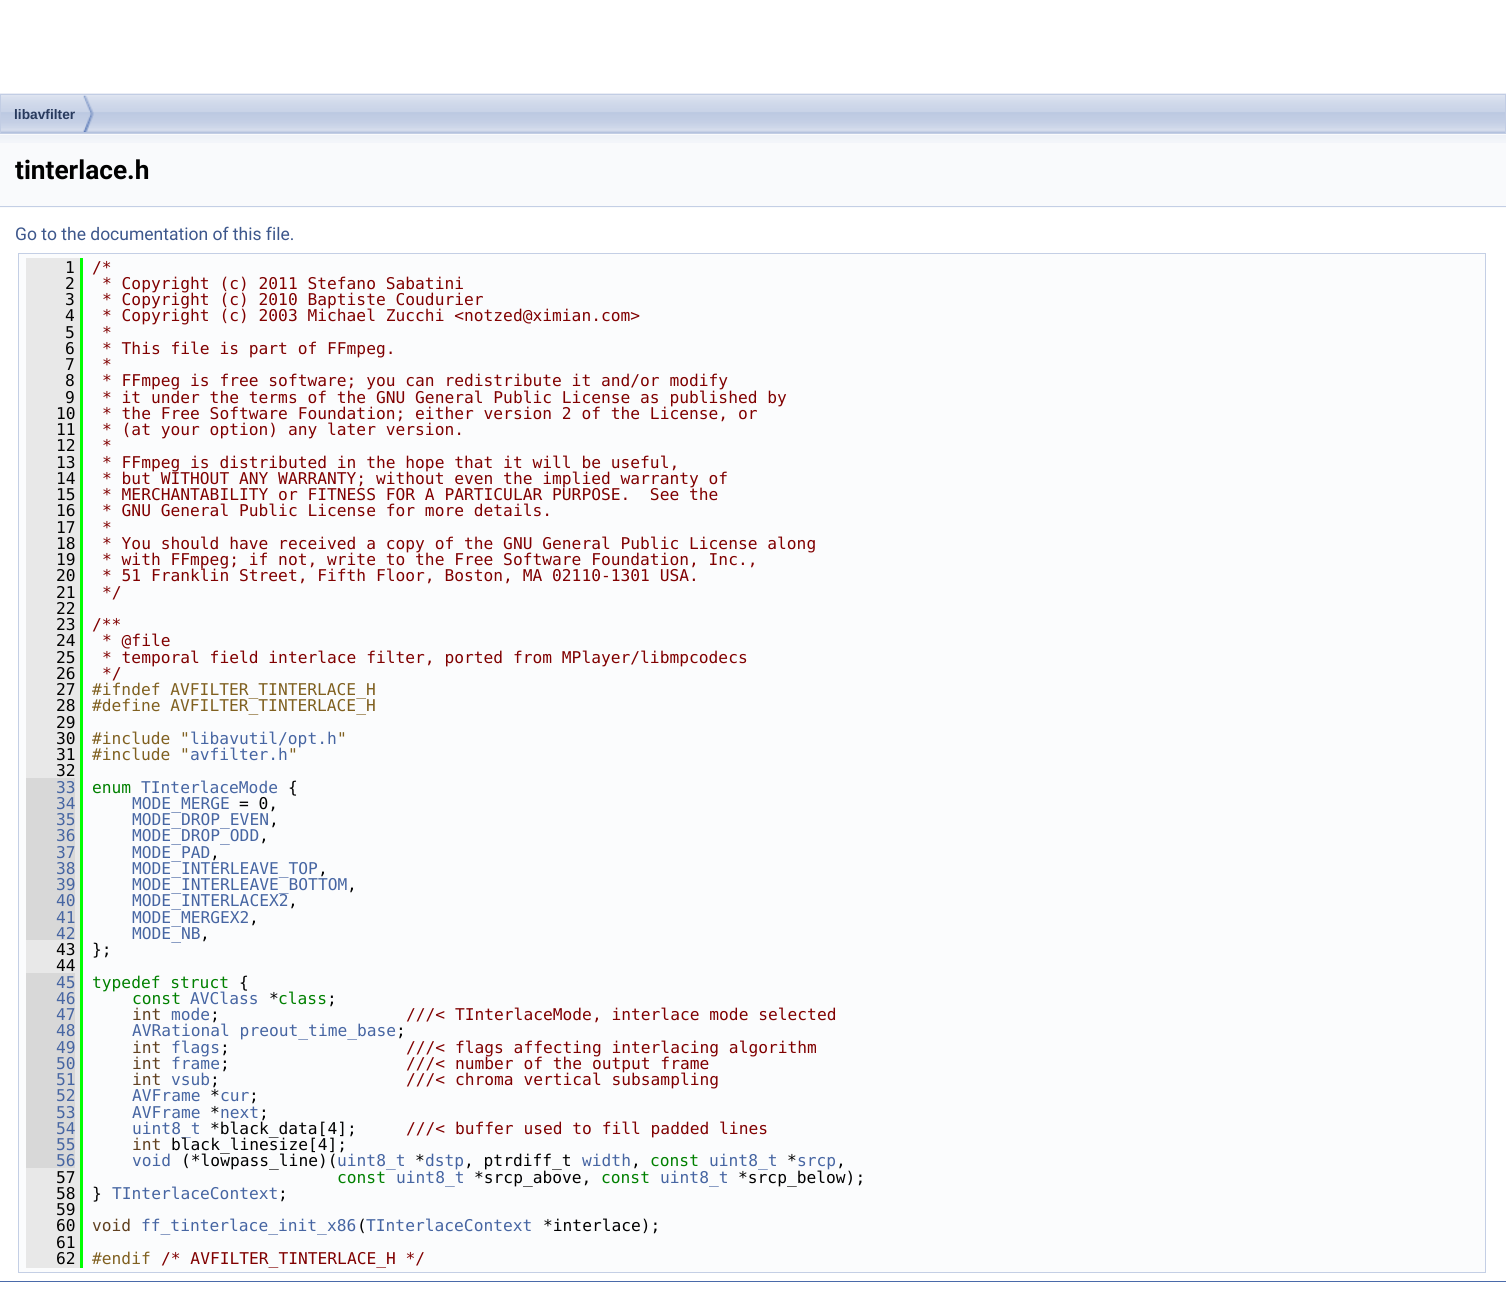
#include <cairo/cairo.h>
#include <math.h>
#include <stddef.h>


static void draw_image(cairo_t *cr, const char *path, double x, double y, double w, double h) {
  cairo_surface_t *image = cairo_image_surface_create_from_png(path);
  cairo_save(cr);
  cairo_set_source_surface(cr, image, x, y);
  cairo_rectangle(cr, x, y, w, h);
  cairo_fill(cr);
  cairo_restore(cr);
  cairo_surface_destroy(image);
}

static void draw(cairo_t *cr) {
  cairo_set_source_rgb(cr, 1, 1, 1);
  cairo_paint(cr);
  draw_image(cr, "images/1.png", 0, 93, 1506, 40);
  cairo_rectangle(cr, 0.5, 94.5, 1505, 39);
  cairo_set_source_rgb(cr, 194 / 255.0, 205 / 255.0, 228 / 255.0);
  cairo_set_line_width(cr, 1);
  cairo_stroke(cr);
  draw_image(cr, "images/2.png", 83, 95, 11, 37);
  cairo_set_source_rgb(cr, 249 / 255.0, 250 / 255.0, 252 / 255.0);
  cairo_rectangle(cr, 0, 134, 1506, 74);
  cairo_fill(cr);
  draw_image(cr, "images/3.png", 0, 135, 1506, 8);
  cairo_set_source_rgb(cr, 196 / 255.0, 207 / 255.0, 229 / 255.0);
  cairo_rectangle(cr, 0, 206, 1506, 1);
  cairo_fill(cr);
  cairo_set_source_rgb(cr, 251 / 255.0, 252 / 255.0, 253 / 255.0);
  cairo_rectangle(cr, 18.5, 253.5, 1467, 1019);
  cairo_fill_preserve(cr);
  cairo_set_source_rgb(cr, 196 / 255.0, 207 / 255.0, 229 / 255.0);
  cairo_stroke(cr);
  cairo_set_source_rgb(cr, 232 / 255.0, 232 / 255.0, 232 / 255.0);
  cairo_rectangle(cr, 26, 258, 54, 520);
  cairo_fill(cr);
  cairo_set_source_rgb(cr, 0, 1, 0);
  cairo_rectangle(cr, 80, 258, 3, 1010);
  cairo_fill(cr);
  cairo_set_source_rgb(cr, 232 / 255.0, 232 / 255.0, 232 / 255.0);
  cairo_rectangle(cr, 75, 778, 5, 162);
  cairo_fill(cr);
  cairo_set_source_rgb(cr, 216 / 255.0, 216 / 255.0, 216 / 255.0);
  cairo_rectangle(cr, 26, 778, 49, 162);
  cairo_fill(cr);
  cairo_set_source_rgb(cr, 232 / 255.0, 232 / 255.0, 232 / 255.0);
  cairo_rectangle(cr, 26, 940, 54, 33);
  cairo_fill(cr);
  cairo_rectangle(cr, 75, 973, 5, 195);
  cairo_fill(cr);
  cairo_set_source_rgb(cr, 216 / 255.0, 216 / 255.0, 216 / 255.0);
  cairo_rectangle(cr, 26, 973, 49, 195);
  cairo_fill(cr);
  cairo_set_source_rgb(cr, 232 / 255.0, 232 / 255.0, 232 / 255.0);
  cairo_rectangle(cr, 26, 1168, 54, 100);
  cairo_fill(cr);
  cairo_set_source_rgb(cr, 74 / 255.0, 106 / 255.0, 170 / 255.0);
  cairo_rectangle(cr, 0, 1281, 1506, 1);
  cairo_fill(cr);
  cairo_select_font_face(cr, "Liberation Sans", CAIRO_FONT_SLANT_NORMAL, CAIRO_FONT_WEIGHT_BOLD);
  cairo_set_font_size(cr, 13.75);
  cairo_set_source_rgb(cr, 40 / 255.0, 58 / 255.0, 93 / 255.0);
  cairo_move_to(cr, 14, 119);
  cairo_show_text(cr, "libavfilter");
  cairo_select_font_face(cr, "Roboto", CAIRO_FONT_SLANT_NORMAL, CAIRO_FONT_WEIGHT_BOLD);
  cairo_set_font_size(cr, 26.25);
  cairo_set_source_rgb(cr, 0, 0, 0);
  cairo_move_to(cr, 15, 179);
  cairo_show_text(cr, "tinterlace.h");
  cairo_select_font_face(cr, "Roboto", CAIRO_FONT_SLANT_NORMAL, CAIRO_FONT_WEIGHT_NORMAL);
  cairo_set_font_size(cr, 17.5);
  cairo_set_source_rgb(cr, 61 / 255.0, 87 / 255.0, 140 / 255.0);
  cairo_move_to(cr, 15, 240);
  cairo_show_text(cr, "Go to the documentation of this file.");
  cairo_select_font_face(cr, "DejaVu Sans Mono", CAIRO_FONT_SLANT_NORMAL, CAIRO_FONT_WEIGHT_NORMAL);
  cairo_set_font_size(cr, 16.25);
  cairo_set_source_rgb(cr, 0, 0, 0);
  cairo_move_to(cr, 65, 273);
  cairo_show_text(cr, "1");
  cairo_set_source_rgb(cr, 128 / 255.0, 0, 0);
  cairo_move_to(cr, 92, 273);
  cairo_show_text(cr, "/*");
  cairo_set_source_rgb(cr, 0, 0, 0);
  cairo_move_to(cr, 65, 289);
  cairo_show_text(cr, "2");
  cairo_set_source_rgb(cr, 128 / 255.0, 0, 0);
  cairo_move_to(cr, 102, 289);
  cairo_show_text(cr, "* Copyright (c) 2011 Stefano Sabatini");
  cairo_set_source_rgb(cr, 0, 0, 0);
  cairo_move_to(cr, 65, 305);
  cairo_show_text(cr, "3");
  cairo_set_source_rgb(cr, 128 / 255.0, 0, 0);
  cairo_move_to(cr, 102, 305);
  cairo_show_text(cr, "* Copyright (c) 2010 Baptiste Coudurier");
  cairo_set_source_rgb(cr, 0, 0, 0);
  cairo_move_to(cr, 65, 321);
  cairo_show_text(cr, "4");
  cairo_set_source_rgb(cr, 128 / 255.0, 0, 0);
  cairo_move_to(cr, 102, 321);
  cairo_show_text(cr, "* Copyright (c) 2003 Michael Zucchi <notzed@ximian.com>");
  cairo_set_source_rgb(cr, 0, 0, 0);
  cairo_move_to(cr, 65, 338);
  cairo_show_text(cr, "5");
  cairo_set_source_rgb(cr, 128 / 255.0, 0, 0);
  cairo_move_to(cr, 102, 338);
  cairo_show_text(cr, "*");
  cairo_set_source_rgb(cr, 0, 0, 0);
  cairo_move_to(cr, 65, 354);
  cairo_show_text(cr, "6");
  cairo_set_source_rgb(cr, 128 / 255.0, 0, 0);
  cairo_move_to(cr, 102, 354);
  cairo_show_text(cr, "* This file is part of FFmpeg.");
  cairo_set_source_rgb(cr, 0, 0, 0);
  cairo_move_to(cr, 65, 370);
  cairo_show_text(cr, "7");
  cairo_set_source_rgb(cr, 128 / 255.0, 0, 0);
  cairo_move_to(cr, 102, 370);
  cairo_show_text(cr, "*");
  cairo_set_source_rgb(cr, 0, 0, 0);
  cairo_move_to(cr, 65, 386);
  cairo_show_text(cr, "8");
  cairo_set_source_rgb(cr, 128 / 255.0, 0, 0);
  cairo_move_to(cr, 102, 386);
  cairo_show_text(cr, "* FFmpeg is free software; you can redistribute it and/or modify");
  cairo_set_source_rgb(cr, 0, 0, 0);
  cairo_move_to(cr, 65, 403);
  cairo_show_text(cr, "9");
  cairo_set_source_rgb(cr, 128 / 255.0, 0, 0);
  cairo_move_to(cr, 102, 403);
  cairo_show_text(cr, "* it under the terms of the GNU General Public License as published by");
  cairo_set_source_rgb(cr, 0, 0, 0);
  cairo_move_to(cr, 56, 419);
  cairo_show_text(cr, "10");
  cairo_set_source_rgb(cr, 128 / 255.0, 0, 0);
  cairo_move_to(cr, 102, 419);
  cairo_show_text(cr, "* the Free Software Foundation; either version 2 of the License, or");
  cairo_set_source_rgb(cr, 0, 0, 0);
  cairo_move_to(cr, 56, 435);
  cairo_show_text(cr, "11");
  cairo_set_source_rgb(cr, 128 / 255.0, 0, 0);
  cairo_move_to(cr, 102, 435);
  cairo_show_text(cr, "* (at your option) any later version.");
  cairo_set_source_rgb(cr, 0, 0, 0);
  cairo_move_to(cr, 56, 451);
  cairo_show_text(cr, "12");
  cairo_set_source_rgb(cr, 128 / 255.0, 0, 0);
  cairo_move_to(cr, 102, 451);
  cairo_show_text(cr, "*");
  cairo_set_source_rgb(cr, 0, 0, 0);
  cairo_move_to(cr, 56, 468);
  cairo_show_text(cr, "13");
  cairo_set_source_rgb(cr, 128 / 255.0, 0, 0);
  cairo_move_to(cr, 102, 468);
  cairo_show_text(cr, "* FFmpeg is distributed in the hope that it will be useful,");
  cairo_set_source_rgb(cr, 0, 0, 0);
  cairo_move_to(cr, 56, 484);
  cairo_show_text(cr, "14");
  cairo_set_source_rgb(cr, 128 / 255.0, 0, 0);
  cairo_move_to(cr, 102, 484);
  cairo_show_text(cr, "* but WITHOUT ANY WARRANTY; without even the implied warranty of");
  cairo_set_source_rgb(cr, 0, 0, 0);
  cairo_move_to(cr, 56, 500);
  cairo_show_text(cr, "15");
  cairo_set_source_rgb(cr, 128 / 255.0, 0, 0);
  cairo_move_to(cr, 102, 500);
  cairo_show_text(cr, "* MERCHANTABILITY or FITNESS FOR A PARTICULAR PURPOSE.  See the");
  cairo_set_source_rgb(cr, 0, 0, 0);
  cairo_move_to(cr, 56, 516);
  cairo_show_text(cr, "16");
  cairo_set_source_rgb(cr, 128 / 255.0, 0, 0);
  cairo_move_to(cr, 102, 516);
  cairo_show_text(cr, "* GNU General Public License for more details.");
  cairo_set_source_rgb(cr, 0, 0, 0);
  cairo_move_to(cr, 56, 533);
  cairo_show_text(cr, "17");
  cairo_set_source_rgb(cr, 128 / 255.0, 0, 0);
  cairo_move_to(cr, 102, 533);
  cairo_show_text(cr, "*");
  cairo_set_source_rgb(cr, 0, 0, 0);
  cairo_move_to(cr, 56, 549);
  cairo_show_text(cr, "18");
  cairo_set_source_rgb(cr, 128 / 255.0, 0, 0);
  cairo_move_to(cr, 102, 549);
  cairo_show_text(cr, "* You should have received a copy of the GNU General Public License along");
  cairo_set_source_rgb(cr, 0, 0, 0);
  cairo_move_to(cr, 56, 565);
  cairo_show_text(cr, "19");
  cairo_set_source_rgb(cr, 128 / 255.0, 0, 0);
  cairo_move_to(cr, 102, 565);
  cairo_show_text(cr, "* with FFmpeg; if not, write to the Free Software Foundation, Inc.,");
  cairo_set_source_rgb(cr, 0, 0, 0);
  cairo_move_to(cr, 56, 581);
  cairo_show_text(cr, "20");
  cairo_set_source_rgb(cr, 128 / 255.0, 0, 0);
  cairo_move_to(cr, 102, 581);
  cairo_show_text(cr, "* 51 Franklin Street, Fifth Floor, Boston, MA 02110-1301 USA.");
  cairo_set_source_rgb(cr, 0, 0, 0);
  cairo_move_to(cr, 56, 598);
  cairo_show_text(cr, "21");
  cairo_set_source_rgb(cr, 128 / 255.0, 0, 0);
  cairo_move_to(cr, 102, 598);
  cairo_show_text(cr, "*/");
  cairo_set_source_rgb(cr, 0, 0, 0);
  cairo_move_to(cr, 56, 614);
  cairo_show_text(cr, "22");
  cairo_move_to(cr, 56, 630);
  cairo_show_text(cr, "23");
  cairo_set_source_rgb(cr, 128 / 255.0, 0, 0);
  cairo_move_to(cr, 92, 630);
  cairo_show_text(cr, "/**");
  cairo_set_source_rgb(cr, 0, 0, 0);
  cairo_move_to(cr, 56, 646);
  cairo_show_text(cr, "24");
  cairo_set_source_rgb(cr, 128 / 255.0, 0, 0);
  cairo_move_to(cr, 102, 646);
  cairo_show_text(cr, "* @file");
  cairo_set_source_rgb(cr, 0, 0, 0);
  cairo_move_to(cr, 56, 663);
  cairo_show_text(cr, "25");
  cairo_set_source_rgb(cr, 128 / 255.0, 0, 0);
  cairo_move_to(cr, 102, 663);
  cairo_show_text(cr, "* temporal field interlace filter, ported from MPlayer/libmpcodecs");
  cairo_set_source_rgb(cr, 0, 0, 0);
  cairo_move_to(cr, 56, 679);
  cairo_show_text(cr, "26");
  cairo_set_source_rgb(cr, 128 / 255.0, 0, 0);
  cairo_move_to(cr, 102, 679);
  cairo_show_text(cr, "*/");
  cairo_set_source_rgb(cr, 0, 0, 0);
  cairo_move_to(cr, 56, 695);
  cairo_show_text(cr, "27");
  cairo_set_source_rgb(cr, 128 / 255.0, 96 / 255.0, 32 / 255.0);
  cairo_move_to(cr, 92, 695);
  cairo_show_text(cr, "#ifndef AVFILTER_TINTERLACE_H");
  cairo_set_source_rgb(cr, 0, 0, 0);
  cairo_move_to(cr, 56, 711);
  cairo_show_text(cr, "28");
  cairo_set_source_rgb(cr, 128 / 255.0, 96 / 255.0, 32 / 255.0);
  cairo_move_to(cr, 92, 711);
  cairo_show_text(cr, "#define AVFILTER_TINTERLACE_H");
  cairo_set_source_rgb(cr, 0, 0, 0);
  cairo_move_to(cr, 56, 728);
  cairo_show_text(cr, "29");
  cairo_move_to(cr, 56, 744);
  cairo_show_text(cr, "30");
  cairo_set_source_rgb(cr, 128 / 255.0, 96 / 255.0, 32 / 255.0);
  cairo_move_to(cr, 92, 744);
  cairo_show_text(cr, "#include \"");
  cairo_set_source_rgb(cr, 70 / 255.0, 101 / 255.0, 162 / 255.0);
  cairo_move_to(cr, 190, 744);
  cairo_show_text(cr, "libavutil/opt.h");
  cairo_set_source_rgb(cr, 128 / 255.0, 96 / 255.0, 32 / 255.0);
  cairo_move_to(cr, 337, 744);
  cairo_show_text(cr, "\"");
  cairo_set_source_rgb(cr, 0, 0, 0);
  cairo_move_to(cr, 56, 760);
  cairo_show_text(cr, "31");
  cairo_set_source_rgb(cr, 128 / 255.0, 96 / 255.0, 32 / 255.0);
  cairo_move_to(cr, 92, 760);
  cairo_show_text(cr, "#include \"");
  cairo_set_source_rgb(cr, 70 / 255.0, 101 / 255.0, 162 / 255.0);
  cairo_move_to(cr, 190, 760);
  cairo_show_text(cr, "avfilter.h");
  cairo_set_source_rgb(cr, 128 / 255.0, 96 / 255.0, 32 / 255.0);
  cairo_move_to(cr, 288, 760);
  cairo_show_text(cr, "\"");
  cairo_set_source_rgb(cr, 0, 0, 0);
  cairo_move_to(cr, 56, 776);
  cairo_show_text(cr, "32");
  cairo_set_source_rgb(cr, 70 / 255.0, 101 / 255.0, 162 / 255.0);
  cairo_move_to(cr, 56, 793);
  cairo_show_text(cr, "33");
  cairo_set_source_rgb(cr, 0, 128 / 255.0, 0);
  cairo_move_to(cr, 92, 793);
  cairo_show_text(cr, "enum");
  cairo_set_source_rgb(cr, 70 / 255.0, 101 / 255.0, 162 / 255.0);
  cairo_move_to(cr, 141, 793);
  cairo_show_text(cr, "TInterlaceMode");
  cairo_set_source_rgb(cr, 0, 0, 0);
  cairo_move_to(cr, 288, 793);
  cairo_show_text(cr, "{");
  cairo_set_source_rgb(cr, 70 / 255.0, 101 / 255.0, 162 / 255.0);
  cairo_move_to(cr, 56, 809);
  cairo_show_text(cr, "34");
  cairo_move_to(cr, 132, 809);
  cairo_show_text(cr, "MODE_MERGE");
  cairo_set_source_rgb(cr, 0, 0, 0);
  cairo_move_to(cr, 239, 809);
  cairo_show_text(cr, "= 0,");
  cairo_set_source_rgb(cr, 70 / 255.0, 101 / 255.0, 162 / 255.0);
  cairo_move_to(cr, 56, 825);
  cairo_show_text(cr, "35");
  cairo_move_to(cr, 132, 825);
  cairo_show_text(cr, "MODE_DROP_EVEN");
  cairo_set_source_rgb(cr, 0, 0, 0);
  cairo_move_to(cr, 269, 825);
  cairo_show_text(cr, ",");
  cairo_set_source_rgb(cr, 70 / 255.0, 101 / 255.0, 162 / 255.0);
  cairo_move_to(cr, 56, 841);
  cairo_show_text(cr, "36");
  cairo_move_to(cr, 132, 841);
  cairo_show_text(cr, "MODE_DROP_ODD");
  cairo_set_source_rgb(cr, 0, 0, 0);
  cairo_move_to(cr, 259, 841);
  cairo_show_text(cr, ",");
  cairo_set_source_rgb(cr, 70 / 255.0, 101 / 255.0, 162 / 255.0);
  cairo_move_to(cr, 56, 858);
  cairo_show_text(cr, "37");
  cairo_move_to(cr, 132, 858);
  cairo_show_text(cr, "MODE_PAD");
  cairo_set_source_rgb(cr, 0, 0, 0);
  cairo_move_to(cr, 210, 858);
  cairo_show_text(cr, ",");
  cairo_set_source_rgb(cr, 70 / 255.0, 101 / 255.0, 162 / 255.0);
  cairo_move_to(cr, 56, 874);
  cairo_show_text(cr, "38");
  cairo_move_to(cr, 132, 874);
  cairo_show_text(cr, "MODE_INTERLEAVE_TOP");
  cairo_set_source_rgb(cr, 0, 0, 0);
  cairo_move_to(cr, 318, 874);
  cairo_show_text(cr, ",");
  cairo_set_source_rgb(cr, 70 / 255.0, 101 / 255.0, 162 / 255.0);
  cairo_move_to(cr, 56, 890);
  cairo_show_text(cr, "39");
  cairo_move_to(cr, 132, 890);
  cairo_show_text(cr, "MODE_INTERLEAVE_BOTTOM");
  cairo_set_source_rgb(cr, 0, 0, 0);
  cairo_move_to(cr, 347, 890);
  cairo_show_text(cr, ",");
  cairo_set_source_rgb(cr, 70 / 255.0, 101 / 255.0, 162 / 255.0);
  cairo_move_to(cr, 56, 906);
  cairo_show_text(cr, "40");
  cairo_move_to(cr, 132, 906);
  cairo_show_text(cr, "MODE_INTERLACEX2");
  cairo_set_source_rgb(cr, 0, 0, 0);
  cairo_move_to(cr, 288, 906);
  cairo_show_text(cr, ",");
  cairo_set_source_rgb(cr, 70 / 255.0, 101 / 255.0, 162 / 255.0);
  cairo_move_to(cr, 56, 923);
  cairo_show_text(cr, "41");
  cairo_move_to(cr, 132, 923);
  cairo_show_text(cr, "MODE_MERGEX2");
  cairo_set_source_rgb(cr, 0, 0, 0);
  cairo_move_to(cr, 249, 923);
  cairo_show_text(cr, ",");
  cairo_set_source_rgb(cr, 70 / 255.0, 101 / 255.0, 162 / 255.0);
  cairo_move_to(cr, 56, 939);
  cairo_show_text(cr, "42");
  cairo_move_to(cr, 132, 939);
  cairo_show_text(cr, "MODE_NB");
  cairo_set_source_rgb(cr, 0, 0, 0);
  cairo_move_to(cr, 200, 939);
  cairo_show_text(cr, ",");
  cairo_move_to(cr, 56, 955);
  cairo_show_text(cr, "43");
  cairo_move_to(cr, 92, 955);
  cairo_show_text(cr, "};");
  cairo_move_to(cr, 56, 971);
  cairo_show_text(cr, "44");
  cairo_set_source_rgb(cr, 70 / 255.0, 101 / 255.0, 162 / 255.0);
  cairo_move_to(cr, 56, 988);
  cairo_show_text(cr, "45");
  cairo_set_source_rgb(cr, 0, 128 / 255.0, 0);
  cairo_move_to(cr, 92, 988);
  cairo_show_text(cr, "typedef struct");
  cairo_set_source_rgb(cr, 0, 0, 0);
  cairo_move_to(cr, 239, 988);
  cairo_show_text(cr, "{");
  cairo_set_source_rgb(cr, 70 / 255.0, 101 / 255.0, 162 / 255.0);
  cairo_move_to(cr, 56, 1004);
  cairo_show_text(cr, "46");
  cairo_set_source_rgb(cr, 0, 128 / 255.0, 0);
  cairo_move_to(cr, 132, 1004);
  cairo_show_text(cr, "const");
  cairo_set_source_rgb(cr, 70 / 255.0, 101 / 255.0, 162 / 255.0);
  cairo_move_to(cr, 190, 1004);
  cairo_show_text(cr, "AVClass");
  cairo_set_source_rgb(cr, 0, 0, 0);
  cairo_move_to(cr, 269, 1004);
  cairo_show_text(cr, "*");
  cairo_set_source_rgb(cr, 0, 128 / 255.0, 0);
  cairo_move_to(cr, 278, 1004);
  cairo_show_text(cr, "class");
  cairo_set_source_rgb(cr, 0, 0, 0);
  cairo_move_to(cr, 327, 1004);
  cairo_show_text(cr, ";");
  cairo_set_source_rgb(cr, 70 / 255.0, 101 / 255.0, 162 / 255.0);
  cairo_move_to(cr, 56, 1020);
  cairo_show_text(cr, "47");
  cairo_set_source_rgb(cr, 96 / 255.0, 64 / 255.0, 32 / 255.0);
  cairo_move_to(cr, 132, 1020);
  cairo_show_text(cr, "int");
  cairo_set_source_rgb(cr, 70 / 255.0, 101 / 255.0, 162 / 255.0);
  cairo_move_to(cr, 171, 1020);
  cairo_show_text(cr, "mode");
  cairo_set_source_rgb(cr, 0, 0, 0);
  cairo_move_to(cr, 210, 1020);
  cairo_show_text(cr, ";");
  cairo_set_source_rgb(cr, 128 / 255.0, 0, 0);
  cairo_move_to(cr, 406, 1020);
  cairo_show_text(cr, "///< TInterlaceMode, interlace mode selected");
  cairo_set_source_rgb(cr, 70 / 255.0, 101 / 255.0, 162 / 255.0);
  cairo_move_to(cr, 56, 1036);
  cairo_show_text(cr, "48");
  cairo_move_to(cr, 132, 1036);
  cairo_show_text(cr, "AVRational preout_time_base");
  cairo_set_source_rgb(cr, 0, 0, 0);
  cairo_move_to(cr, 396, 1036);
  cairo_show_text(cr, ";");
  cairo_set_source_rgb(cr, 70 / 255.0, 101 / 255.0, 162 / 255.0);
  cairo_move_to(cr, 56, 1053);
  cairo_show_text(cr, "49");
  cairo_set_source_rgb(cr, 96 / 255.0, 64 / 255.0, 32 / 255.0);
  cairo_move_to(cr, 132, 1053);
  cairo_show_text(cr, "int");
  cairo_set_source_rgb(cr, 70 / 255.0, 101 / 255.0, 162 / 255.0);
  cairo_move_to(cr, 171, 1053);
  cairo_show_text(cr, "flags");
  cairo_set_source_rgb(cr, 0, 0, 0);
  cairo_move_to(cr, 220, 1053);
  cairo_show_text(cr, ";");
  cairo_set_source_rgb(cr, 128 / 255.0, 0, 0);
  cairo_move_to(cr, 406, 1053);
  cairo_show_text(cr, "///< flags affecting interlacing algorithm");
  cairo_set_source_rgb(cr, 70 / 255.0, 101 / 255.0, 162 / 255.0);
  cairo_move_to(cr, 56, 1069);
  cairo_show_text(cr, "50");
  cairo_set_source_rgb(cr, 96 / 255.0, 64 / 255.0, 32 / 255.0);
  cairo_move_to(cr, 132, 1069);
  cairo_show_text(cr, "int");
  cairo_set_source_rgb(cr, 70 / 255.0, 101 / 255.0, 162 / 255.0);
  cairo_move_to(cr, 171, 1069);
  cairo_show_text(cr, "frame");
  cairo_set_source_rgb(cr, 0, 0, 0);
  cairo_move_to(cr, 220, 1069);
  cairo_show_text(cr, ";");
  cairo_set_source_rgb(cr, 128 / 255.0, 0, 0);
  cairo_move_to(cr, 406, 1069);
  cairo_show_text(cr, "///< number of the output frame");
  cairo_set_source_rgb(cr, 70 / 255.0, 101 / 255.0, 162 / 255.0);
  cairo_move_to(cr, 56, 1085);
  cairo_show_text(cr, "51");
  cairo_set_source_rgb(cr, 96 / 255.0, 64 / 255.0, 32 / 255.0);
  cairo_move_to(cr, 132, 1085);
  cairo_show_text(cr, "int");
  cairo_set_source_rgb(cr, 70 / 255.0, 101 / 255.0, 162 / 255.0);
  cairo_move_to(cr, 171, 1085);
  cairo_show_text(cr, "vsub");
  cairo_set_source_rgb(cr, 0, 0, 0);
  cairo_move_to(cr, 210, 1085);
  cairo_show_text(cr, ";");
  cairo_set_source_rgb(cr, 128 / 255.0, 0, 0);
  cairo_move_to(cr, 406, 1085);
  cairo_show_text(cr, "///< chroma vertical subsampling");
  cairo_set_source_rgb(cr, 70 / 255.0, 101 / 255.0, 162 / 255.0);
  cairo_move_to(cr, 56, 1101);
  cairo_show_text(cr, "52");
  cairo_move_to(cr, 132, 1101);
  cairo_show_text(cr, "AVFrame");
  cairo_set_source_rgb(cr, 0, 0, 0);
  cairo_move_to(cr, 210, 1101);
  cairo_show_text(cr, "*");
  cairo_set_source_rgb(cr, 70 / 255.0, 101 / 255.0, 162 / 255.0);
  cairo_move_to(cr, 220, 1101);
  cairo_show_text(cr, "cur");
  cairo_set_source_rgb(cr, 0, 0, 0);
  cairo_move_to(cr, 249, 1101);
  cairo_show_text(cr, ";");
  cairo_set_source_rgb(cr, 70 / 255.0, 101 / 255.0, 162 / 255.0);
  cairo_move_to(cr, 56, 1118);
  cairo_show_text(cr, "53");
  cairo_move_to(cr, 132, 1118);
  cairo_show_text(cr, "AVFrame");
  cairo_set_source_rgb(cr, 0, 0, 0);
  cairo_move_to(cr, 210, 1118);
  cairo_show_text(cr, "*");
  cairo_set_source_rgb(cr, 70 / 255.0, 101 / 255.0, 162 / 255.0);
  cairo_move_to(cr, 220, 1118);
  cairo_show_text(cr, "next");
  cairo_set_source_rgb(cr, 0, 0, 0);
  cairo_move_to(cr, 259, 1118);
  cairo_show_text(cr, ";");
  cairo_set_source_rgb(cr, 70 / 255.0, 101 / 255.0, 162 / 255.0);
  cairo_move_to(cr, 56, 1134);
  cairo_show_text(cr, "54");
  cairo_move_to(cr, 132, 1134);
  cairo_show_text(cr, "uint8_t");
  cairo_set_source_rgb(cr, 0, 0, 0);
  cairo_move_to(cr, 210, 1134);
  cairo_show_text(cr, "*black_data[4];");
  cairo_set_source_rgb(cr, 128 / 255.0, 0, 0);
  cairo_move_to(cr, 406, 1134);
  cairo_show_text(cr, "///< buffer used to fill padded lines");
  cairo_set_source_rgb(cr, 70 / 255.0, 101 / 255.0, 162 / 255.0);
  cairo_move_to(cr, 56, 1150);
  cairo_show_text(cr, "55");
  cairo_set_source_rgb(cr, 96 / 255.0, 64 / 255.0, 32 / 255.0);
  cairo_move_to(cr, 132, 1150);
  cairo_show_text(cr, "int");
  cairo_set_source_rgb(cr, 0, 0, 0);
  cairo_move_to(cr, 171, 1150);
  cairo_show_text(cr, "black_linesize[4];");
  cairo_set_source_rgb(cr, 70 / 255.0, 101 / 255.0, 162 / 255.0);
  cairo_move_to(cr, 56, 1166);
  cairo_show_text(cr, "56");
  cairo_move_to(cr, 132, 1166);
  cairo_show_text(cr, "void");
  cairo_set_source_rgb(cr, 0, 0, 0);
  cairo_move_to(cr, 181, 1166);
  cairo_show_text(cr, "(*lowpass_line)(");
  cairo_set_source_rgb(cr, 70 / 255.0, 101 / 255.0, 162 / 255.0);
  cairo_move_to(cr, 337, 1166);
  cairo_show_text(cr, "uint8_t");
  cairo_set_source_rgb(cr, 0, 0, 0);
  cairo_move_to(cr, 415, 1166);
  cairo_show_text(cr, "*");
  cairo_set_source_rgb(cr, 70 / 255.0, 101 / 255.0, 162 / 255.0);
  cairo_move_to(cr, 425, 1166);
  cairo_show_text(cr, "dstp");
  cairo_set_source_rgb(cr, 0, 0, 0);
  cairo_move_to(cr, 464, 1166);
  cairo_show_text(cr, ", ptrdiff_t");
  cairo_set_source_rgb(cr, 70 / 255.0, 101 / 255.0, 162 / 255.0);
  cairo_move_to(cr, 582, 1166);
  cairo_show_text(cr, "width");
  cairo_set_source_rgb(cr, 0, 0, 0);
  cairo_move_to(cr, 631, 1166);
  cairo_show_text(cr, ",");
  cairo_set_source_rgb(cr, 0, 128 / 255.0, 0);
  cairo_move_to(cr, 650, 1166);
  cairo_show_text(cr, "const");
  cairo_set_source_rgb(cr, 70 / 255.0, 101 / 255.0, 162 / 255.0);
  cairo_move_to(cr, 709, 1166);
  cairo_show_text(cr, "uint8_t");
  cairo_set_source_rgb(cr, 0, 0, 0);
  cairo_move_to(cr, 787, 1166);
  cairo_show_text(cr, "*");
  cairo_set_source_rgb(cr, 70 / 255.0, 101 / 255.0, 162 / 255.0);
  cairo_move_to(cr, 797, 1166);
  cairo_show_text(cr, "srcp");
  cairo_set_source_rgb(cr, 0, 0, 0);
  cairo_move_to(cr, 836, 1166);
  cairo_show_text(cr, ",");
  cairo_move_to(cr, 56, 1183);
  cairo_show_text(cr, "57");
  cairo_set_source_rgb(cr, 0, 128 / 255.0, 0);
  cairo_move_to(cr, 337, 1183);
  cairo_show_text(cr, "const");
  cairo_set_source_rgb(cr, 70 / 255.0, 101 / 255.0, 162 / 255.0);
  cairo_move_to(cr, 396, 1183);
  cairo_show_text(cr, "uint8_t");
  cairo_set_source_rgb(cr, 0, 0, 0);
  cairo_move_to(cr, 474, 1183);
  cairo_show_text(cr, "*srcp_above,");
  cairo_set_source_rgb(cr, 0, 128 / 255.0, 0);
  cairo_move_to(cr, 601, 1183);
  cairo_show_text(cr, "const");
  cairo_set_source_rgb(cr, 70 / 255.0, 101 / 255.0, 162 / 255.0);
  cairo_move_to(cr, 660, 1183);
  cairo_show_text(cr, "uint8_t");
  cairo_set_source_rgb(cr, 0, 0, 0);
  cairo_move_to(cr, 738, 1183);
  cairo_show_text(cr, "*srcp_below);");
  cairo_move_to(cr, 56, 1199);
  cairo_show_text(cr, "58");
  cairo_move_to(cr, 92, 1199);
  cairo_show_text(cr, "}");
  cairo_set_source_rgb(cr, 70 / 255.0, 101 / 255.0, 162 / 255.0);
  cairo_move_to(cr, 112, 1199);
  cairo_show_text(cr, "TInterlaceContext");
  cairo_set_source_rgb(cr, 0, 0, 0);
  cairo_move_to(cr, 278, 1199);
  cairo_show_text(cr, ";");
  cairo_move_to(cr, 56, 1215);
  cairo_show_text(cr, "59");
  cairo_move_to(cr, 56, 1231);
  cairo_show_text(cr, "60");
  cairo_set_source_rgb(cr, 96 / 255.0, 64 / 255.0, 32 / 255.0);
  cairo_move_to(cr, 92, 1231);
  cairo_show_text(cr, "void");
  cairo_set_source_rgb(cr, 70 / 255.0, 101 / 255.0, 162 / 255.0);
  cairo_move_to(cr, 141, 1231);
  cairo_show_text(cr, "ff_tinterlace_init_x86 TInterlaceContext");
  cairo_set_source_rgb(cr, 0, 0, 0);
  cairo_move_to(cr, 357, 1231);
  cairo_show_text(cr, "(");
  cairo_move_to(cr, 543, 1231);
  cairo_show_text(cr, "*interlace);");
  cairo_move_to(cr, 56, 1248);
  cairo_show_text(cr, "61");
  cairo_move_to(cr, 56, 1264);
  cairo_show_text(cr, "62");
  cairo_set_source_rgb(cr, 128 / 255.0, 96 / 255.0, 32 / 255.0);
  cairo_move_to(cr, 92, 1264);
  cairo_show_text(cr, "#endif");
  cairo_set_source_rgb(cr, 128 / 255.0, 0, 0);
  cairo_move_to(cr, 161, 1264);
  cairo_show_text(cr, "/* AVFILTER_TINTERLACE_H */");
}

int main(void) {
  cairo_surface_t *surface = cairo_image_surface_create(CAIRO_FORMAT_RGB24, 1506, 1289);
  cairo_t *cr = cairo_create(surface);
  cairo_font_options_t *options = cairo_font_options_create();
  cairo_font_options_set_hint_metrics(options, CAIRO_HINT_METRICS_OFF);
  cairo_font_options_set_hint_style(options, CAIRO_HINT_STYLE_NONE);
  cairo_set_font_options(cr, options);
  cairo_set_miter_limit(cr, 4);
  draw(cr);
  cairo_surface_write_to_png(surface, "out.png");
  cairo_font_options_destroy(options);
  cairo_destroy(cr);
  cairo_surface_destroy(surface);
  return 0;
}
